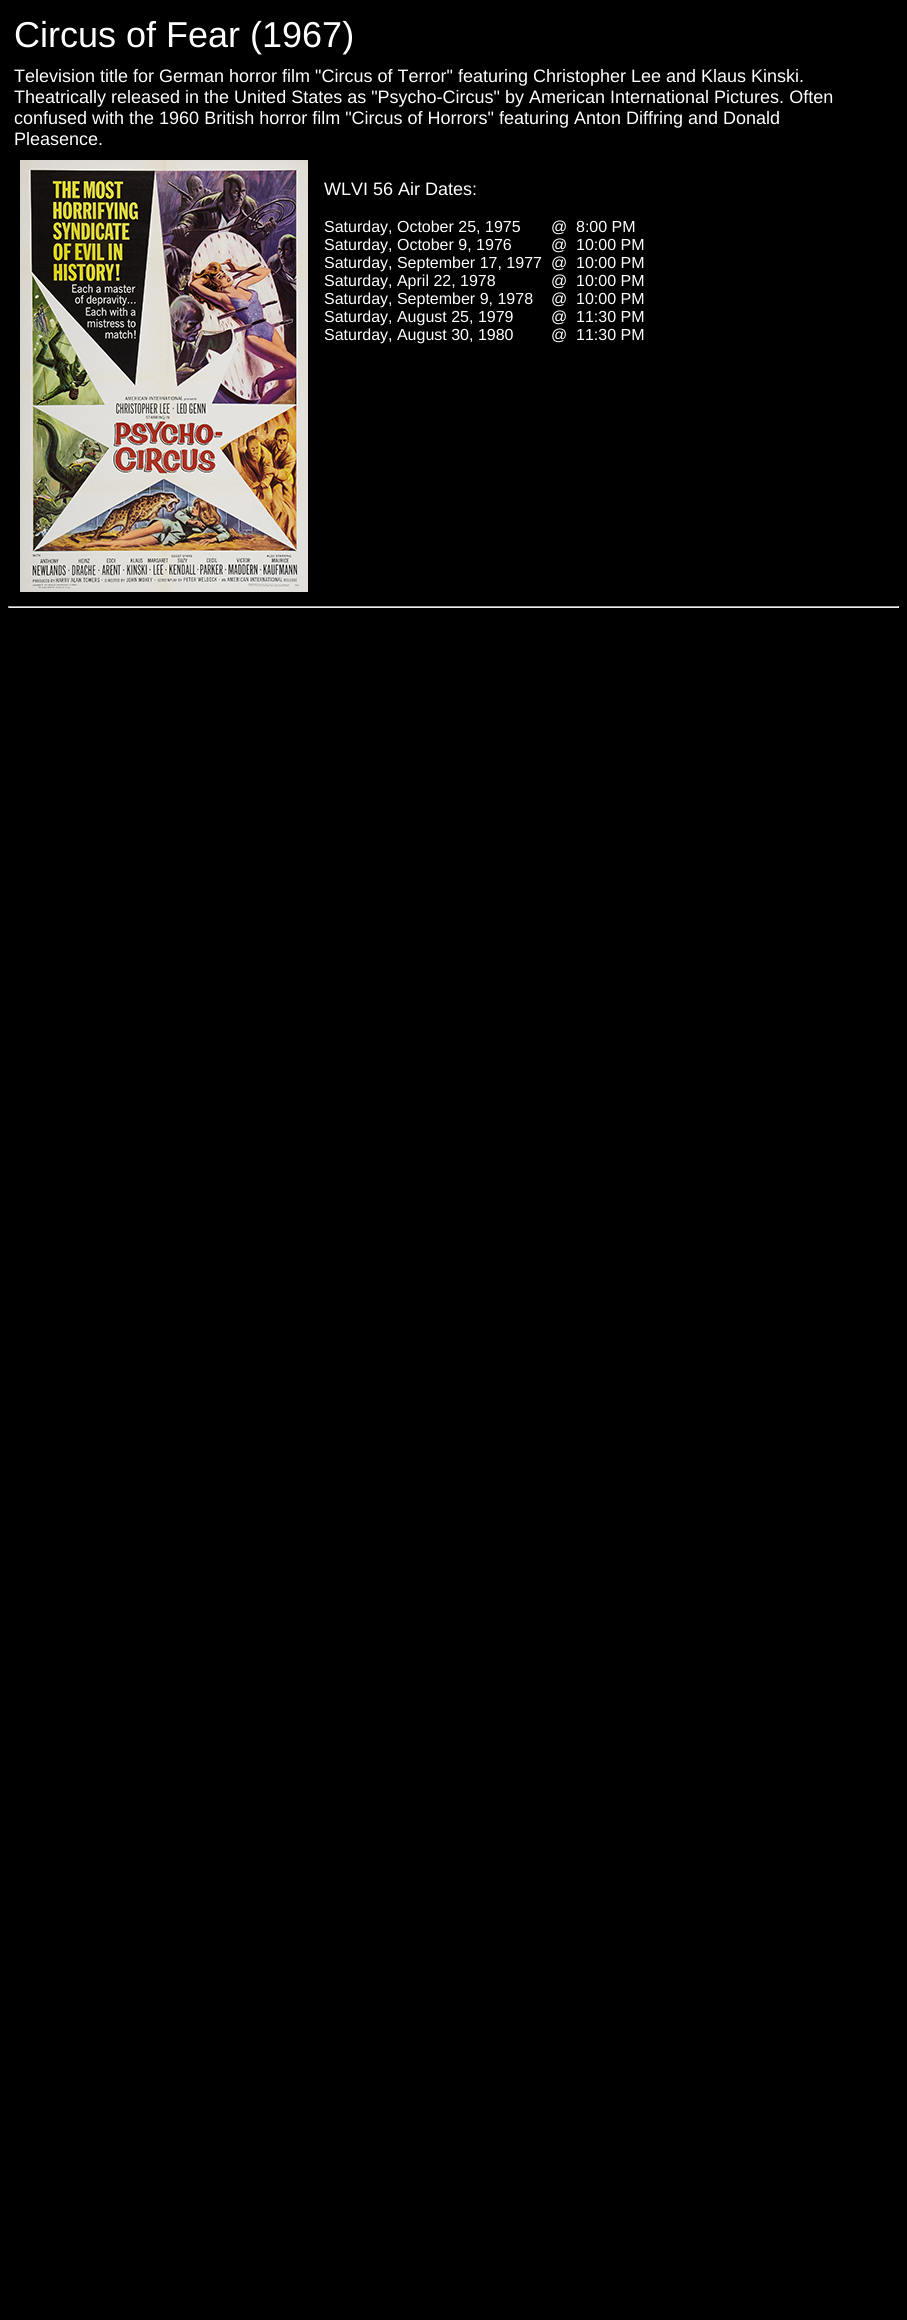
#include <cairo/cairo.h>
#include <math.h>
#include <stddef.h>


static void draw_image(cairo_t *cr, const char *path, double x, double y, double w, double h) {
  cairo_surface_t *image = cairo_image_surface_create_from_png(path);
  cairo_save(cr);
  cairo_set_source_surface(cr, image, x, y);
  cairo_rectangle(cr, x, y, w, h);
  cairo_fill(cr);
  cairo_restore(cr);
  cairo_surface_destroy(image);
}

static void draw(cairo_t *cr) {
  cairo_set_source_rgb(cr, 0, 0, 0);
  cairo_paint(cr);
  draw_image(cr, "images/1.png", 20, 160, 288, 432);
  cairo_set_source_rgb(cr, 159 / 255.0, 159 / 255.0, 159 / 255.0);
  cairo_rectangle(cr, 8, 606, 891, 1);
  cairo_fill(cr);
  cairo_set_source_rgb(cr, 238 / 255.0, 238 / 255.0, 238 / 255.0);
  cairo_rectangle(cr, 898, 606, 1, 2);
  cairo_fill(cr);
  cairo_rectangle(cr, 8, 607, 891, 1);
  cairo_fill(cr);
  cairo_set_source_rgb(cr, 159 / 255.0, 159 / 255.0, 159 / 255.0);
  cairo_rectangle(cr, 8, 606, 1, 2);
  cairo_fill(cr);
  cairo_select_font_face(cr, "Liberation Sans", CAIRO_FONT_SLANT_NORMAL, CAIRO_FONT_WEIGHT_NORMAL);
  cairo_set_font_size(cr, 36);
  cairo_set_source_rgb(cr, 1, 1, 1);
  cairo_move_to(cr, 14, 47);
  cairo_show_text(cr, "Circus of Fear (1967)");
  cairo_set_font_size(cr, 18);
  cairo_move_to(cr, 14, 82);
  cairo_show_text(cr, "Television title for German horror film \"Circus of Terror\" featuring Christopher Lee and Klaus Kinski.");
  cairo_move_to(cr, 14, 103);
  cairo_show_text(cr, "Theatrically released in the United States as \"Psycho-Circus\" by American International Pictures. Often");
  cairo_move_to(cr, 14, 124);
  cairo_show_text(cr, "confused with the 1960 British horror film \"Circus of Horrors\" featuring Anton Diffring and Donald");
  cairo_move_to(cr, 14, 145);
  cairo_show_text(cr, "Pleasence.");
  cairo_move_to(cr, 324, 195);
  cairo_show_text(cr, "WLVI 56 Air Dates:");
  cairo_set_font_size(cr, 16);
  cairo_move_to(cr, 324, 232);
  cairo_show_text(cr, "Saturday, October 25, 1975");
  cairo_move_to(cr, 551, 232);
  cairo_show_text(cr, "@");
  cairo_move_to(cr, 576, 232);
  cairo_show_text(cr, "8:00 PM");
  cairo_move_to(cr, 324, 250);
  cairo_show_text(cr, "Saturday, October 9, 1976");
  cairo_move_to(cr, 551, 250);
  cairo_show_text(cr, "@");
  cairo_move_to(cr, 576, 250);
  cairo_show_text(cr, "10:00 PM");
  cairo_move_to(cr, 324, 268);
  cairo_show_text(cr, "Saturday, September 17, 1977");
  cairo_move_to(cr, 551, 268);
  cairo_show_text(cr, "@");
  cairo_move_to(cr, 576, 268);
  cairo_show_text(cr, "10:00 PM");
  cairo_move_to(cr, 324, 286);
  cairo_show_text(cr, "Saturday, April 22, 1978");
  cairo_move_to(cr, 551, 286);
  cairo_show_text(cr, "@");
  cairo_move_to(cr, 576, 286);
  cairo_show_text(cr, "10:00 PM");
  cairo_move_to(cr, 324, 304);
  cairo_show_text(cr, "Saturday, September 9, 1978");
  cairo_move_to(cr, 551, 304);
  cairo_show_text(cr, "@");
  cairo_move_to(cr, 576, 304);
  cairo_show_text(cr, "10:00 PM");
  cairo_move_to(cr, 324, 322);
  cairo_show_text(cr, "Saturday, August 25, 1979");
  cairo_move_to(cr, 551, 322);
  cairo_show_text(cr, "@");
  cairo_move_to(cr, 576, 322);
  cairo_show_text(cr, "11:30 PM");
  cairo_move_to(cr, 324, 340);
  cairo_show_text(cr, "Saturday, August 30, 1980");
  cairo_move_to(cr, 551, 340);
  cairo_show_text(cr, "@");
  cairo_move_to(cr, 576, 340);
  cairo_show_text(cr, "11:30 PM");
}

int main(void) {
  cairo_surface_t *surface = cairo_image_surface_create(CAIRO_FORMAT_RGB24, 907, 2320);
  cairo_t *cr = cairo_create(surface);
  cairo_font_options_t *options = cairo_font_options_create();
  cairo_font_options_set_hint_metrics(options, CAIRO_HINT_METRICS_OFF);
  cairo_font_options_set_hint_style(options, CAIRO_HINT_STYLE_NONE);
  cairo_set_font_options(cr, options);
  cairo_set_miter_limit(cr, 4);
  draw(cr);
  cairo_surface_write_to_png(surface, "out.png");
  cairo_font_options_destroy(options);
  cairo_destroy(cr);
  cairo_surface_destroy(surface);
  return 0;
}
